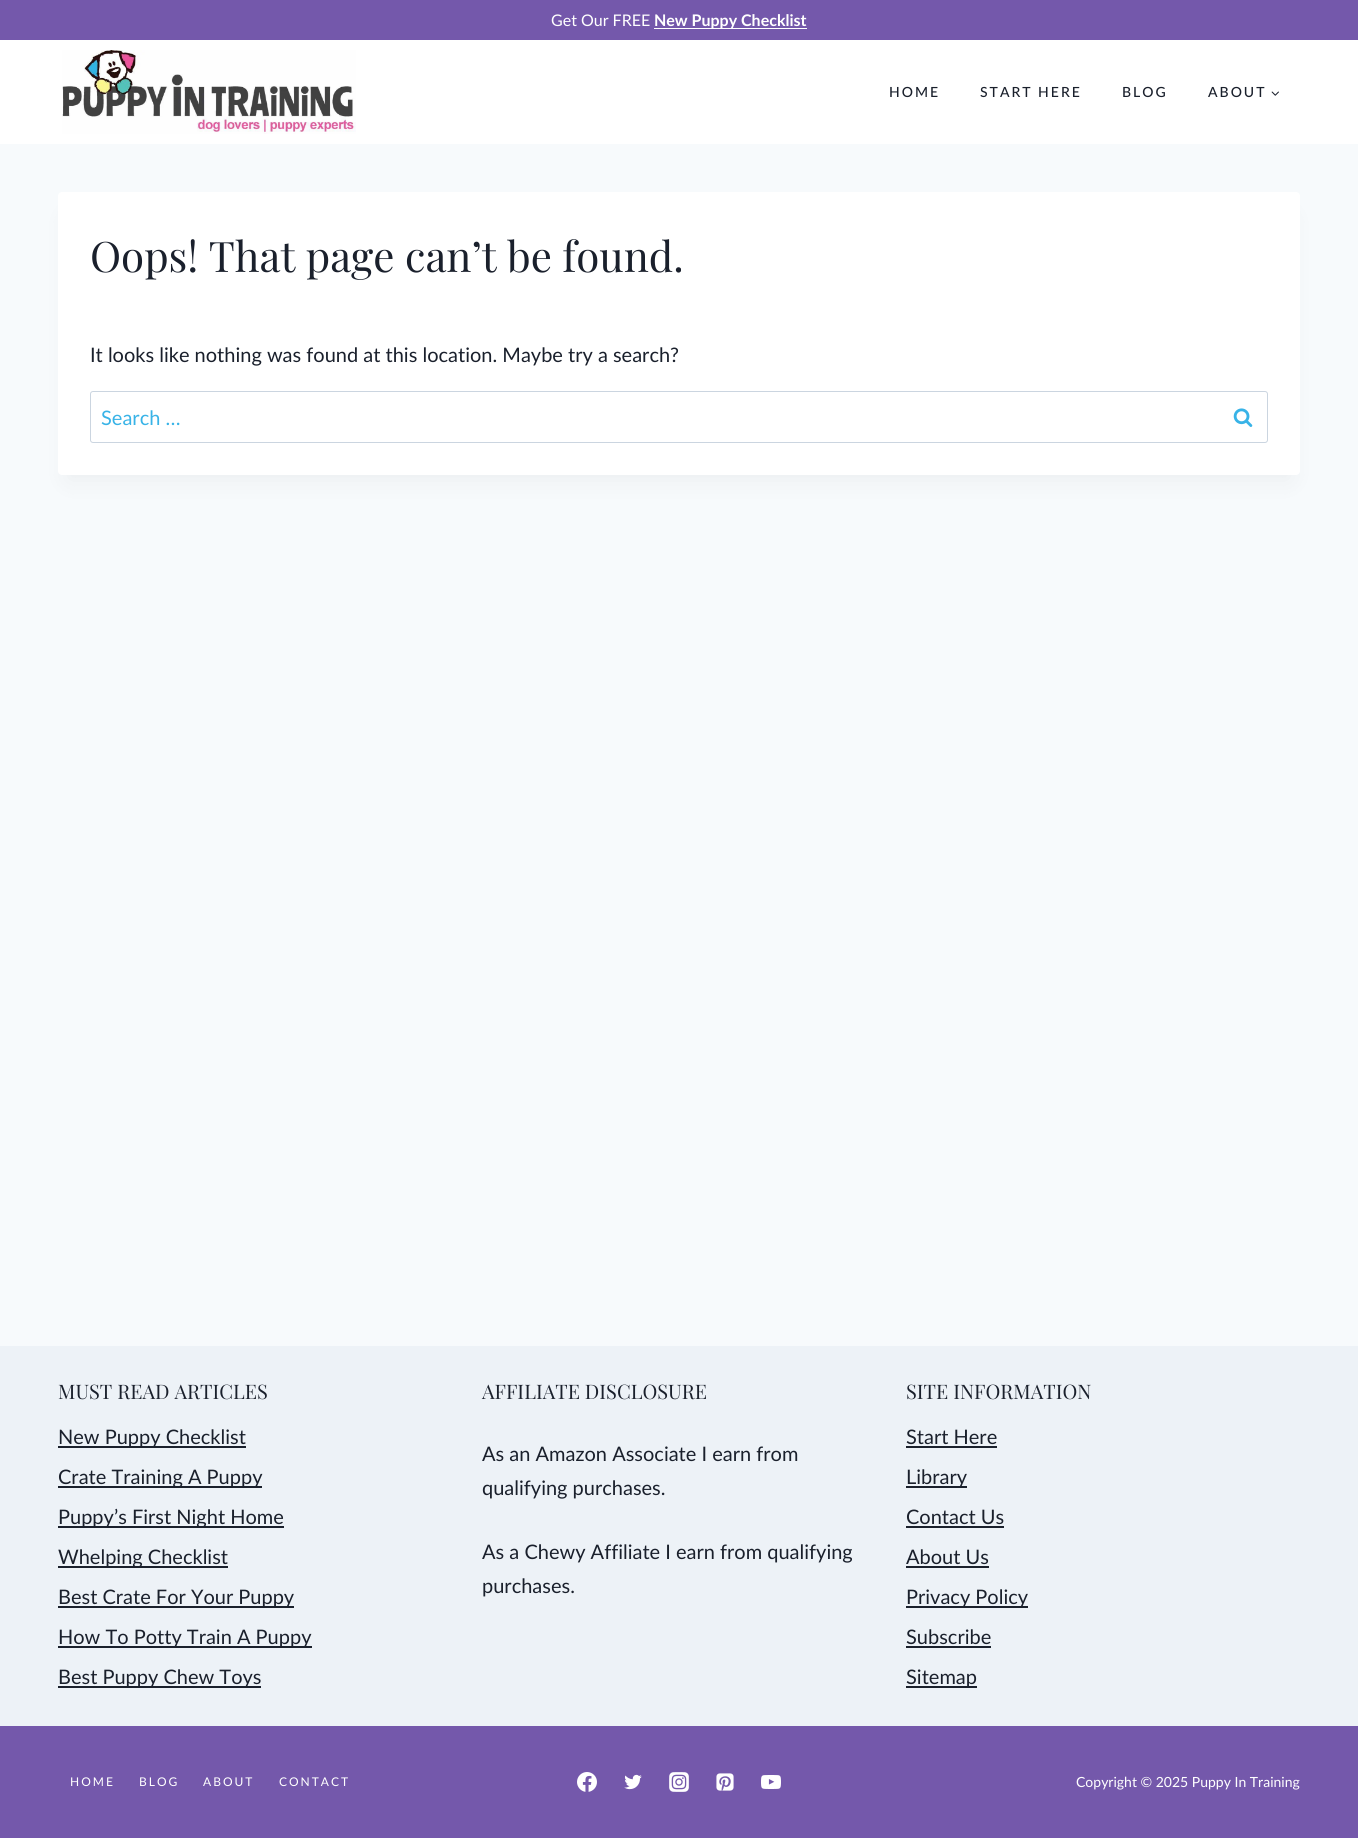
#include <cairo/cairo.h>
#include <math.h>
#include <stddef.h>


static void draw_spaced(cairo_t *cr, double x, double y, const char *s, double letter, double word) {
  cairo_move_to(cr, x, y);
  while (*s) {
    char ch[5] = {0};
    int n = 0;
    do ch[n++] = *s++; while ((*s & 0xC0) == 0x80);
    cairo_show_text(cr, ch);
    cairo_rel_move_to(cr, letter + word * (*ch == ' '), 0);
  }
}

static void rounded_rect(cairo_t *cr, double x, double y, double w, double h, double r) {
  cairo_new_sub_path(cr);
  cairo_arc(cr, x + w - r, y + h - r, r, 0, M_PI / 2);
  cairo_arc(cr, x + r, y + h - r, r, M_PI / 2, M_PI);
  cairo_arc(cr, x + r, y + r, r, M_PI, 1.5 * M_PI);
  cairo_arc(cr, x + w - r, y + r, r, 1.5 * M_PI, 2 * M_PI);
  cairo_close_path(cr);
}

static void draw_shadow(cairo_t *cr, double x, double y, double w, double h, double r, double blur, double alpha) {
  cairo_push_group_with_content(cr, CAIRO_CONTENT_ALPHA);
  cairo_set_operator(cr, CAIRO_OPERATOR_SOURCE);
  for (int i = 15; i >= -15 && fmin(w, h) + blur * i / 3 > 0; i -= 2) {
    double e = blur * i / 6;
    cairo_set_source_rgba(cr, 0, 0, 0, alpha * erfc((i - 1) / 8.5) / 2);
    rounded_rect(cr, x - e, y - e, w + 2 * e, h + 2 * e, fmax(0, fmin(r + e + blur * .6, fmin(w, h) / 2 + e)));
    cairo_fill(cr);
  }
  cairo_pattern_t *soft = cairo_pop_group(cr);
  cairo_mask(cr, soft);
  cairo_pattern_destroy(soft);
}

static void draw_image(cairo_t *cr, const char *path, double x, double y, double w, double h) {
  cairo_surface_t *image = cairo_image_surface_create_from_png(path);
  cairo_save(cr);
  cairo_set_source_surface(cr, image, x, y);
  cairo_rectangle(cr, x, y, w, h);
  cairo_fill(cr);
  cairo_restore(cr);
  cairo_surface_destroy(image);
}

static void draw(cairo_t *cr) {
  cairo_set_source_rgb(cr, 247 / 255.0, 250 / 255.0, 252 / 255.0);
  cairo_paint(cr);
  cairo_set_source_rgb(cr, 1, 1, 1);
  cairo_rectangle(cr, 0, 40, 1358, 104);
  cairo_fill(cr);
  cairo_set_source_rgb(cr, 116 / 255.0, 88 / 255.0, 171 / 255.0);
  cairo_rectangle(cr, 0, 0, 1358, 40);
  cairo_fill(cr);
  cairo_set_source_rgb(cr, 1, 1, 1);
  cairo_rectangle(cr, 654, 28, 153, 1);
  cairo_fill(cr);
  draw_image(cr, "images/1.png", 62, 50, 294, 84);
  draw_image(cr, "images/2.png", 1271, 91, 8, 5);
  cairo_set_source_rgb(cr, 0, 0, 0);
  draw_shadow(cr, 68, 217, 1222, 263, 0, 12.5, 0.05);
  cairo_set_source_rgb(cr, 1, 1, 1);
  rounded_rect(cr, 58, 192, 1242, 283, 4);
  cairo_fill(cr);
  rounded_rect(cr, 90.5, 391.5, 1177, 51, 2.5);
  cairo_set_source_rgb(cr, 203 / 255.0, 213 / 255.0, 224 / 255.0);
  cairo_set_line_width(cr, 1);
  cairo_stroke(cr);
  draw_image(cr, "images/3.png", 1233, 408, 20, 19);
  cairo_set_source_rgb(cr, 237 / 255.0, 242 / 255.0, 247 / 255.0);
  cairo_rectangle(cr, 0, 1346, 1358, 380);
  cairo_fill(cr);
  cairo_set_source_rgb(cr, 26 / 255.0, 32 / 255.0, 44 / 255.0);
  cairo_rectangle(cr, 58, 1446, 188, 2);
  cairo_fill(cr);
  cairo_rectangle(cr, 58, 1486, 204, 2);
  cairo_fill(cr);
  cairo_rectangle(cr, 58, 1526, 226, 2);
  cairo_fill(cr);
  cairo_rectangle(cr, 58, 1566, 170, 2);
  cairo_fill(cr);
  cairo_rectangle(cr, 58, 1606, 236, 2);
  cairo_fill(cr);
  cairo_rectangle(cr, 58, 1646, 254, 2);
  cairo_fill(cr);
  cairo_rectangle(cr, 58, 1686, 203, 2);
  cairo_fill(cr);
  cairo_rectangle(cr, 906, 1446, 91, 2);
  cairo_fill(cr);
  cairo_rectangle(cr, 906, 1486, 61, 2);
  cairo_fill(cr);
  cairo_rectangle(cr, 906, 1526, 98, 2);
  cairo_fill(cr);
  cairo_rectangle(cr, 906, 1566, 83, 2);
  cairo_fill(cr);
  cairo_rectangle(cr, 906, 1606, 122, 2);
  cairo_fill(cr);
  cairo_rectangle(cr, 906, 1646, 85, 2);
  cairo_fill(cr);
  cairo_rectangle(cr, 906, 1686, 71, 2);
  cairo_fill(cr);
  cairo_set_source_rgb(cr, 116 / 255.0, 88 / 255.0, 171 / 255.0);
  cairo_rectangle(cr, 0, 1726, 1358, 112);
  cairo_fill(cr);
  draw_image(cr, "images/4.png", 577, 1772, 20, 20);
  draw_image(cr, "images/5.png", 624, 1774, 18, 16);
  draw_image(cr, "images/6.png", 669, 1772, 20, 20);
  draw_image(cr, "images/7.png", 716, 1773, 18, 18);
  draw_image(cr, "images/8.png", 761, 1775, 20, 14);
  cairo_select_font_face(cr, "Lato", CAIRO_FONT_SLANT_NORMAL, CAIRO_FONT_WEIGHT_NORMAL);
  cairo_set_font_size(cr, 16);
  cairo_set_source_rgb(cr, 1, 1, 1);
  cairo_move_to(cr, 551, 26);
  cairo_show_text(cr, "Get Our FREE");
  cairo_select_font_face(cr, "Lato", CAIRO_FONT_SLANT_NORMAL, CAIRO_FONT_WEIGHT_BOLD);
  cairo_move_to(cr, 654, 26);
  cairo_show_text(cr, "New Puppy Checklist");
  cairo_select_font_face(cr, "Lato Medium", CAIRO_FONT_SLANT_NORMAL, CAIRO_FONT_WEIGHT_NORMAL);
  cairo_set_font_size(cr, 14);
  cairo_set_source_rgb(cr, 26 / 255.0, 32 / 255.0, 44 / 255.0);
  draw_spaced(cr, 889, 97, "HOME", 2, 0);
  draw_spaced(cr, 980, 97, "START HERE", 2, 0);
  draw_spaced(cr, 1122, 97, "BLOG", 2, 0);
  draw_spaced(cr, 1208, 97, "ABOUT", 2, 0);
  cairo_select_font_face(cr, "Playfair Display", CAIRO_FONT_SLANT_NORMAL, CAIRO_FONT_WEIGHT_NORMAL);
  cairo_set_font_size(cr, 42);
  cairo_move_to(cr, 90, 272);
  cairo_show_text(cr, "Oops! That page can’t be found.");
  cairo_select_font_face(cr, "Lato", CAIRO_FONT_SLANT_NORMAL, CAIRO_FONT_WEIGHT_NORMAL);
  cairo_set_font_size(cr, 20);
  cairo_move_to(cr, 90, 362);
  cairo_show_text(cr, "It looks like nothing was found at this location. Maybe try a search?");
  cairo_set_source_rgb(cr, 56 / 255.0, 179 / 255.0, 231 / 255.0);
  cairo_move_to(cr, 101, 425);
  cairo_show_text(cr, "Search …");
  cairo_select_font_face(cr, "Playfair Display", CAIRO_FONT_SLANT_NORMAL, CAIRO_FONT_WEIGHT_NORMAL);
  cairo_set_source_rgb(cr, 26 / 255.0, 32 / 255.0, 44 / 255.0);
  cairo_move_to(cr, 58, 1399);
  cairo_show_text(cr, "MUST READ ARTICLES");
  cairo_select_font_face(cr, "Lato", CAIRO_FONT_SLANT_NORMAL, CAIRO_FONT_WEIGHT_NORMAL);
  cairo_move_to(cr, 58, 1444);
  cairo_show_text(cr, "New Puppy Checklist");
  cairo_move_to(cr, 58, 1484);
  cairo_show_text(cr, "Crate Training A Puppy");
  cairo_move_to(cr, 58, 1524);
  cairo_show_text(cr, "Puppy’s First Night Home");
  cairo_move_to(cr, 58, 1564);
  cairo_show_text(cr, "Whelping Checklist");
  cairo_move_to(cr, 58, 1604);
  cairo_show_text(cr, "Best Crate For Your Puppy");
  cairo_move_to(cr, 58, 1644);
  cairo_show_text(cr, "How To Potty Train A Puppy");
  cairo_move_to(cr, 58, 1684);
  cairo_show_text(cr, "Best Puppy Chew Toys");
  cairo_select_font_face(cr, "Playfair Display", CAIRO_FONT_SLANT_NORMAL, CAIRO_FONT_WEIGHT_NORMAL);
  cairo_move_to(cr, 482, 1399);
  cairo_show_text(cr, "AFFILIATE DISCLOSURE");
  cairo_select_font_face(cr, "Lato", CAIRO_FONT_SLANT_NORMAL, CAIRO_FONT_WEIGHT_NORMAL);
  cairo_move_to(cr, 482, 1461);
  cairo_show_text(cr, "As an Amazon Associate I earn from");
  cairo_move_to(cr, 482, 1495);
  cairo_show_text(cr, "qualifying purchases.");
  cairo_move_to(cr, 482, 1559);
  cairo_show_text(cr, "As a Chewy Affiliate I earn from qualifying");
  cairo_move_to(cr, 482, 1593);
  cairo_show_text(cr, "purchases.");
  cairo_select_font_face(cr, "Playfair Display", CAIRO_FONT_SLANT_NORMAL, CAIRO_FONT_WEIGHT_NORMAL);
  cairo_move_to(cr, 906, 1399);
  cairo_show_text(cr, "SITE INFORMATION");
  cairo_select_font_face(cr, "Lato", CAIRO_FONT_SLANT_NORMAL, CAIRO_FONT_WEIGHT_NORMAL);
  cairo_move_to(cr, 906, 1444);
  cairo_show_text(cr, "Start Here");
  cairo_move_to(cr, 906, 1484);
  cairo_show_text(cr, "Library");
  cairo_move_to(cr, 906, 1524);
  cairo_show_text(cr, "Contact Us");
  cairo_move_to(cr, 906, 1564);
  cairo_show_text(cr, "About Us");
  cairo_move_to(cr, 906, 1604);
  cairo_show_text(cr, "Privacy Policy");
  cairo_move_to(cr, 906, 1644);
  cairo_show_text(cr, "Subscribe");
  cairo_move_to(cr, 906, 1684);
  cairo_show_text(cr, "Sitemap");
  cairo_set_font_size(cr, 12);
  cairo_set_source_rgb(cr, 1, 1, 1);
  draw_spaced(cr, 70, 1786, "HOME", 2, 0);
  draw_spaced(cr, 139, 1786, "BLOG", 2, 0);
  draw_spaced(cr, 203, 1786, "ABOUT", 2, 0);
  draw_spaced(cr, 279, 1786, "CONTACT", 2, 0);
  cairo_set_font_size(cr, 14);
  cairo_move_to(cr, 1076, 1787);
  cairo_show_text(cr, "Copyright © 2025 Puppy In Training");
}

int main(void) {
  cairo_surface_t *surface = cairo_image_surface_create(CAIRO_FORMAT_RGB24, 1358, 1838);
  cairo_t *cr = cairo_create(surface);
  cairo_font_options_t *options = cairo_font_options_create();
  cairo_font_options_set_hint_metrics(options, CAIRO_HINT_METRICS_OFF);
  cairo_font_options_set_hint_style(options, CAIRO_HINT_STYLE_NONE);
  cairo_set_font_options(cr, options);
  cairo_set_miter_limit(cr, 4);
  draw(cr);
  cairo_surface_write_to_png(surface, "out.png");
  cairo_font_options_destroy(options);
  cairo_destroy(cr);
  cairo_surface_destroy(surface);
  return 0;
}
